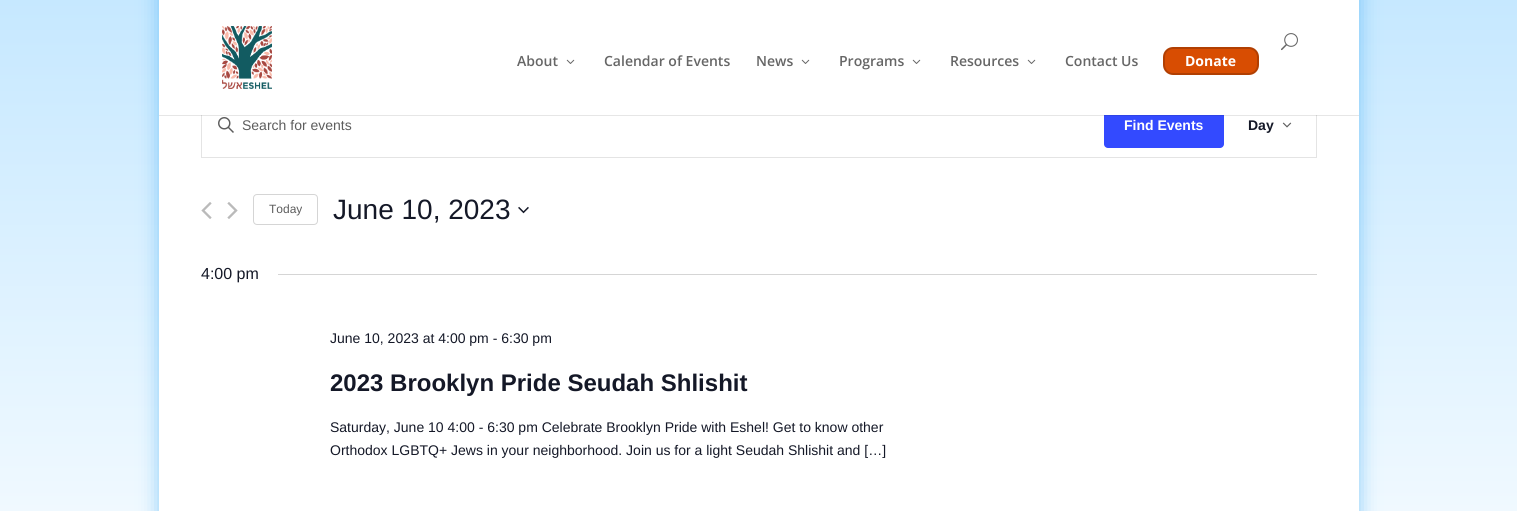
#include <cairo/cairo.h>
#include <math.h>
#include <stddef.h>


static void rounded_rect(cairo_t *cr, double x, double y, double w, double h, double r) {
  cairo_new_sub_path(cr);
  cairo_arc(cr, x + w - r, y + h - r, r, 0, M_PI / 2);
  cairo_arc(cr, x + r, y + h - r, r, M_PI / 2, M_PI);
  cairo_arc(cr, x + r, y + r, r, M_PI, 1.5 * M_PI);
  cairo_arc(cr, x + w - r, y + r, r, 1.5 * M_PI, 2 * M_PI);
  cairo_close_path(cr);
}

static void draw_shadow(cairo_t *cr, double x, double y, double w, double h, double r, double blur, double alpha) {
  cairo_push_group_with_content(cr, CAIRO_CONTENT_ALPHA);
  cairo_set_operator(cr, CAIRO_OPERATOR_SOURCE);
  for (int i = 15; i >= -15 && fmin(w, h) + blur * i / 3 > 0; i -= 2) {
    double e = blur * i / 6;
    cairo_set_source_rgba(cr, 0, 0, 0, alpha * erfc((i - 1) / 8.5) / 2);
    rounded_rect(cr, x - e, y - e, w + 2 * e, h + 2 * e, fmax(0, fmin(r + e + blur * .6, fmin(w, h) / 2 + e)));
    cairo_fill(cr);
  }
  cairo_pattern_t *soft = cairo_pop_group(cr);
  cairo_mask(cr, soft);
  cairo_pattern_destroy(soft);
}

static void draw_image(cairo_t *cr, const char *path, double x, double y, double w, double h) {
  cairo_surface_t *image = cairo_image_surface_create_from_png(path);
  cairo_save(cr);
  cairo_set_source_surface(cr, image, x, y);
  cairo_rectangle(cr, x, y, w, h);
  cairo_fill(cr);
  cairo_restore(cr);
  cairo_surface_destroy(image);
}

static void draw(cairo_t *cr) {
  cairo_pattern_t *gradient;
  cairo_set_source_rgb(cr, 1, 1, 1);
  cairo_paint(cr);
  gradient = cairo_pattern_create_linear(759, 0, 759, 511);
  cairo_pattern_add_color_stop_rgba(gradient, 0, 198 / 255.0, 232 / 255.0, 1, 1);
  cairo_pattern_add_color_stop_rgba(gradient, 1, 240 / 255.0, 249 / 255.0, 1, 1);
  cairo_set_source(cr, gradient);
  cairo_pattern_destroy(gradient);
  cairo_rectangle(cr, 0, 0, 1517, 511);
  cairo_fill(cr);
  cairo_set_source_rgb(cr, 45 / 255.0, 163 / 255.0, 242 / 255.0);
  draw_shadow(cr, 159, -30, 1200, 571, 0, 10, 0.5);
  cairo_set_source_rgb(cr, 1, 1, 1);
  cairo_rectangle(cr, 159, 115, 1200, 396);
  cairo_fill(cr);
  cairo_rectangle(cr, 201.5, 93.5, 1115, 64);
  cairo_set_source_rgb(cr, 228 / 255.0, 228 / 255.0, 228 / 255.0);
  cairo_set_line_width(cr, 1);
  cairo_stroke(cr);
  cairo_set_source_rgb(cr, 51 / 255.0, 74 / 255.0, 1);
  rounded_rect(cr, 1104, 103, 120, 45, 4);
  cairo_fill(cr);
  cairo_set_source_rgba(cr, 0, 0, 0, 0.1);
  cairo_rectangle(cr, 159, 115, 1200, 1);
  cairo_fill(cr);
  cairo_set_source_rgb(cr, 1, 1, 1);
  cairo_rectangle(cr, 159, 0, 1200, 115);
  cairo_fill(cr);
  draw_image(cr, "images/1.png", 222, 26, 50, 63);
  draw_image(cr, "images/2.png", 1281, 33, 17, 18);
  draw_image(cr, "images/3.png", 566, 59, 9, 5);
  draw_image(cr, "images/3.png", 801, 59, 9, 5);
  draw_image(cr, "images/3.png", 912, 59, 9, 5);
  draw_image(cr, "images/3.png", 1027, 59, 9, 5);
  cairo_set_source_rgb(cr, 216 / 255.0, 77 / 255.0, 2 / 255.0);
  rounded_rect(cr, 1164, 48, 94, 26, 9);
  cairo_fill_preserve(cr);
  cairo_set_source_rgb(cr, 177 / 255.0, 63 / 255.0, 2 / 255.0);
  cairo_set_line_width(cr, 2);
  cairo_stroke(cr);
  draw_image(cr, "images/4.png", 218, 117, 16, 16);
  draw_image(cr, "images/5.png", 1282, 122, 10, 6);
  draw_image(cr, "images/6.png", 201, 202, 11, 17);
  draw_image(cr, "images/7.png", 227, 202, 11, 17);
  rounded_rect(cr, 253.5, 194.5, 64, 30, 3.5);
  cairo_set_source_rgb(cr, 213 / 255.0, 213 / 255.0, 213 / 255.0);
  cairo_set_line_width(cr, 1);
  cairo_stroke(cr);
  draw_image(cr, "images/8.png", 518, 206, 11, 8);
  cairo_rectangle(cr, 278, 274, 1039, 1);
  cairo_fill(cr);
  cairo_select_font_face(cr, "Open Sans SemiBold", CAIRO_FONT_SLANT_NORMAL, CAIRO_FONT_WEIGHT_NORMAL);
  cairo_set_font_size(cr, 14);
  cairo_set_source_rgb(cr, 102 / 255.0, 102 / 255.0, 102 / 255.0);
  cairo_move_to(cr, 517, 66);
  cairo_show_text(cr, "About");
  cairo_move_to(cr, 604, 66);
  cairo_show_text(cr, "Calendar of Events");
  cairo_move_to(cr, 756, 66);
  cairo_show_text(cr, "News");
  cairo_move_to(cr, 839, 66);
  cairo_show_text(cr, "Programs");
  cairo_move_to(cr, 950, 66);
  cairo_show_text(cr, "Resources");
  cairo_move_to(cr, 1065, 66);
  cairo_show_text(cr, "Contact Us");
  cairo_select_font_face(cr, "Open Sans", CAIRO_FONT_SLANT_NORMAL, CAIRO_FONT_WEIGHT_BOLD);
  cairo_set_source_rgb(cr, 1, 1, 1);
  cairo_move_to(cr, 1185, 66);
  cairo_show_text(cr, "Donate");
  cairo_select_font_face(cr, "Liberation Sans", CAIRO_FONT_SLANT_NORMAL, CAIRO_FONT_WEIGHT_NORMAL);
  cairo_set_source_rgb(cr, 93 / 255.0, 93 / 255.0, 93 / 255.0);
  cairo_move_to(cr, 242, 130);
  cairo_show_text(cr, "Search for events");
  cairo_select_font_face(cr, "Liberation Sans", CAIRO_FONT_SLANT_NORMAL, CAIRO_FONT_WEIGHT_BOLD);
  cairo_set_source_rgb(cr, 1, 1, 1);
  cairo_move_to(cr, 1124, 130);
  cairo_show_text(cr, "Find Events");
  cairo_set_source_rgb(cr, 20 / 255.0, 24 / 255.0, 39 / 255.0);
  cairo_move_to(cr, 1248, 130);
  cairo_show_text(cr, "Day");
  cairo_select_font_face(cr, "Liberation Sans", CAIRO_FONT_SLANT_NORMAL, CAIRO_FONT_WEIGHT_NORMAL);
  cairo_set_font_size(cr, 12);
  cairo_set_source_rgb(cr, 93 / 255.0, 93 / 255.0, 93 / 255.0);
  cairo_move_to(cr, 269, 213);
  cairo_show_text(cr, "Today");
  cairo_set_font_size(cr, 28);
  cairo_set_source_rgb(cr, 20 / 255.0, 24 / 255.0, 39 / 255.0);
  cairo_move_to(cr, 333, 219);
  cairo_show_text(cr, "June 10, 2023");
  cairo_set_font_size(cr, 16);
  cairo_move_to(cr, 201, 279);
  cairo_show_text(cr, "4:00 pm");
  cairo_set_font_size(cr, 14);
  cairo_move_to(cr, 330, 343);
  cairo_show_text(cr, "June 10, 2023 at 4:00 pm - 6:30 pm");
  cairo_select_font_face(cr, "Liberation Sans", CAIRO_FONT_SLANT_NORMAL, CAIRO_FONT_WEIGHT_BOLD);
  cairo_set_font_size(cr, 24);
  cairo_move_to(cr, 330, 391);
  cairo_show_text(cr, "2023 Brooklyn Pride Seudah Shlishit");
  cairo_select_font_face(cr, "Liberation Sans", CAIRO_FONT_SLANT_NORMAL, CAIRO_FONT_WEIGHT_NORMAL);
  cairo_set_font_size(cr, 14);
  cairo_move_to(cr, 330, 432);
  cairo_show_text(cr, "Saturday, June 10 4:00 - 6:30 pm Celebrate Brooklyn Pride with Eshel! Get to know other");
  cairo_move_to(cr, 330, 455);
  cairo_show_text(cr, "Orthodox LGBTQ+ Jews in your neighborhood. Join us for a light Seudah Shlishit and […]");
}

int main(void) {
  cairo_surface_t *surface = cairo_image_surface_create(CAIRO_FORMAT_RGB24, 1517, 511);
  cairo_t *cr = cairo_create(surface);
  cairo_font_options_t *options = cairo_font_options_create();
  cairo_font_options_set_hint_metrics(options, CAIRO_HINT_METRICS_OFF);
  cairo_font_options_set_hint_style(options, CAIRO_HINT_STYLE_NONE);
  cairo_set_font_options(cr, options);
  cairo_set_miter_limit(cr, 4);
  draw(cr);
  cairo_surface_write_to_png(surface, "out.png");
  cairo_font_options_destroy(options);
  cairo_destroy(cr);
  cairo_surface_destroy(surface);
  return 0;
}
